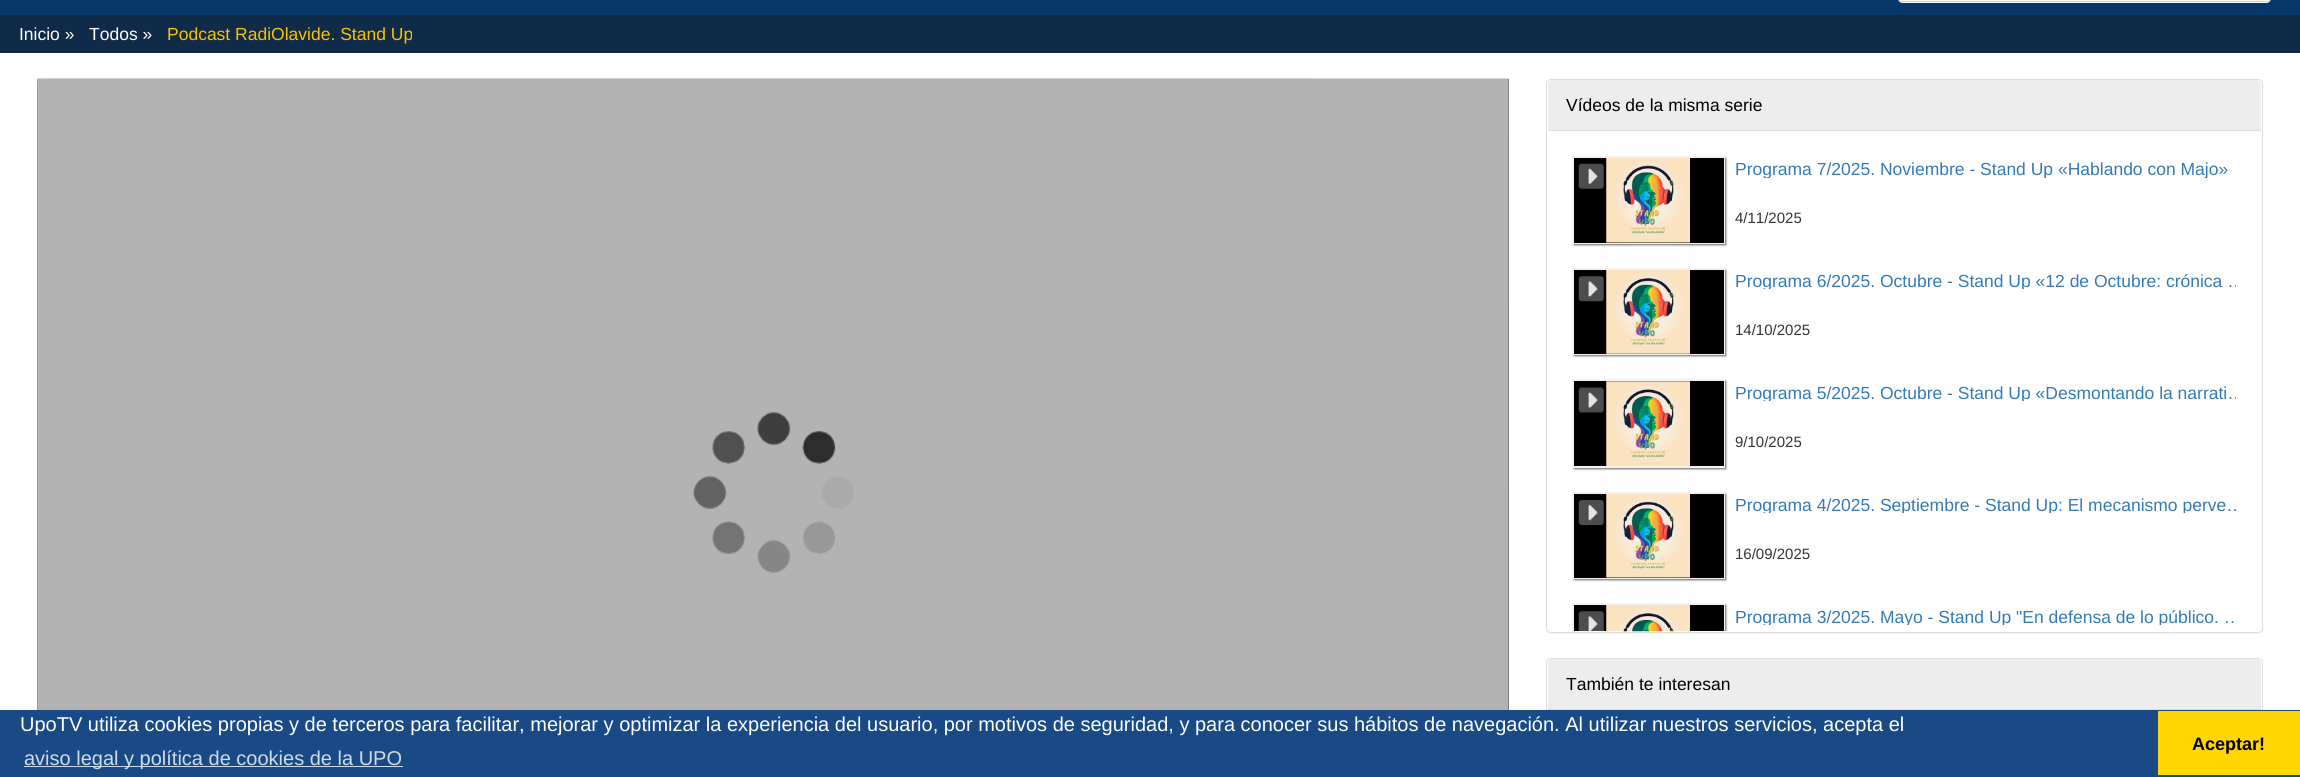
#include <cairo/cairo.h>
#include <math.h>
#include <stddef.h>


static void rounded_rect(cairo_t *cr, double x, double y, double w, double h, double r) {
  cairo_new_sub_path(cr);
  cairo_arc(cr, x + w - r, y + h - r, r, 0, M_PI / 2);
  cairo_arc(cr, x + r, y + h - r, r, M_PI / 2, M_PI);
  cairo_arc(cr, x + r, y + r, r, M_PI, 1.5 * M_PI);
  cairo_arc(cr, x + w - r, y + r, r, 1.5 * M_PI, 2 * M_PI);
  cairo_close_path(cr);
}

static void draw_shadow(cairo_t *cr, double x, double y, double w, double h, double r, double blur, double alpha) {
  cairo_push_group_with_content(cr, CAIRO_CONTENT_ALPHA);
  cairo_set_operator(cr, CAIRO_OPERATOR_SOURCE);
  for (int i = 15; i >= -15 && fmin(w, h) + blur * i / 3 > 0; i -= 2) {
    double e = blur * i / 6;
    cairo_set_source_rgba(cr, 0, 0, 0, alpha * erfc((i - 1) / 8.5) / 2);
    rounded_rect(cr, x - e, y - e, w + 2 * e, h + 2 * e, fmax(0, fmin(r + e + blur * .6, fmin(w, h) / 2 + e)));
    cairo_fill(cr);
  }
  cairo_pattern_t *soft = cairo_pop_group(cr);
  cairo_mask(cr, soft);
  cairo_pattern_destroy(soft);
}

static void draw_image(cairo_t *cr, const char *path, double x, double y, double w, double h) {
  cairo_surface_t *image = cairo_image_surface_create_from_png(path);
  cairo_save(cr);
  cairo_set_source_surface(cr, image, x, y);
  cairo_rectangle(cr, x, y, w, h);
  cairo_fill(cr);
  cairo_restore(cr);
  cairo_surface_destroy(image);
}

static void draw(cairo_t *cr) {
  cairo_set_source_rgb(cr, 7 / 255.0, 55 / 255.0, 105 / 255.0);
  cairo_paint(cr);
  cairo_set_source_rgb(cr, 1, 1, 1);
  cairo_new_path(cr);
  cairo_move_to(cr, 1903, -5);
  cairo_line_to(cr, 2208, -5);
  cairo_line_to(cr, 2208, 3);
  cairo_line_to(cr, 1903, 3);
  cairo_curve_to(cr, 1900, 3, 1898, 1, 1898, -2);
  cairo_line_to(cr, 1898, 0);
  cairo_curve_to(cr, 1898, -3, 1900, -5, 1903, -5);
  cairo_close_path(cr);
  cairo_fill(cr);
  cairo_set_source_rgb(cr, 204 / 255.0, 204 / 255.0, 204 / 255.0);
  cairo_set_fill_rule(cr, CAIRO_FILL_RULE_EVEN_ODD);
  cairo_new_path(cr);
  cairo_move_to(cr, 1902, -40);
  cairo_line_to(cr, 2208, -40);
  cairo_line_to(cr, 2208, 2);
  cairo_line_to(cr, 1902, 2);
  cairo_curve_to(cr, 1900, 2, 1898, 0, 1898, -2);
  cairo_line_to(cr, 1898, -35);
  cairo_curve_to(cr, 1898, -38, 1900, -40, 1902, -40);
  cairo_close_path(cr);
  cairo_move_to(cr, 1902, -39);
  cairo_line_to(cr, 2208, -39);
  cairo_line_to(cr, 2208, 1);
  cairo_line_to(cr, 1902, 1);
  cairo_curve_to(cr, 1900, 1, 1899, 0, 1899, -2);
  cairo_line_to(cr, 1899, -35);
  cairo_curve_to(cr, 1899, -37, 1900, -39, 1902, -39);
  cairo_close_path(cr);
  cairo_fill(cr);
  cairo_set_source_rgb(cr, 1, 1, 1);
  cairo_new_path(cr);
  cairo_move_to(cr, 2208, -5);
  cairo_line_to(cr, 2266, -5);
  cairo_curve_to(cr, 2269, -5, 2271, -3, 2271, 0);
  cairo_line_to(cr, 2271, -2);
  cairo_curve_to(cr, 2271, 1, 2269, 3, 2266, 3);
  cairo_line_to(cr, 2208, 3);
  cairo_close_path(cr);
  cairo_fill(cr);
  cairo_set_source_rgb(cr, 204 / 255.0, 204 / 255.0, 204 / 255.0);
  cairo_new_path(cr);
  cairo_move_to(cr, 2208, -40);
  cairo_line_to(cr, 2266, -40);
  cairo_curve_to(cr, 2269, -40, 2271, -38, 2271, -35);
  cairo_line_to(cr, 2271, -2);
  cairo_curve_to(cr, 2271, 0, 2269, 2, 2266, 2);
  cairo_line_to(cr, 2208, 2);
  cairo_close_path(cr);
  cairo_move_to(cr, 2208, -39);
  cairo_line_to(cr, 2266, -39);
  cairo_curve_to(cr, 2268, -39, 2270, -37, 2270, -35);
  cairo_line_to(cr, 2270, -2);
  cairo_curve_to(cr, 2270, 0, 2268, 1, 2266, 1);
  cairo_line_to(cr, 2208, 1);
  cairo_close_path(cr);
  cairo_fill(cr);
  cairo_set_source_rgb(cr, 15 / 255.0, 43 / 255.0, 71 / 255.0);
  cairo_rectangle(cr, 0, 15, 2300, 38);
  cairo_fill(cr);
  cairo_set_source_rgb(cr, 1, 1, 1);
  cairo_rectangle(cr, 0, 53, 2300, 657);
  cairo_fill(cr);
  draw_image(cr, "images/1.png", 37, 78, 1472, 632);
  cairo_set_source_rgb(cr, 0, 0, 0);
  draw_shadow(cr, 1546, 80, 717, 554, 5, 0.5, 0.05);
  cairo_set_source_rgb(cr, 1, 1, 1);
  rounded_rect(cr, 1546.5, 79.5, 716, 553, 4.5);
  cairo_fill_preserve(cr);
  cairo_set_source_rgb(cr, 221 / 255.0, 221 / 255.0, 221 / 255.0);
  cairo_set_line_width(cr, 1);
  cairo_stroke(cr);
  cairo_set_source_rgb(cr, 237 / 255.0, 237 / 255.0, 237 / 255.0);
  cairo_new_path(cr);
  cairo_move_to(cr, 1552, 80);
  cairo_line_to(cr, 2257, 80);
  cairo_curve_to(cr, 2259, 80, 2261, 82, 2261, 84);
  cairo_line_to(cr, 2261, 131);
  cairo_line_to(cr, 1548, 131);
  cairo_line_to(cr, 1548, 84);
  cairo_curve_to(cr, 1548, 82, 1550, 80, 1552, 80);
  cairo_close_path(cr);
  cairo_fill(cr);
  cairo_set_source_rgb(cr, 221 / 255.0, 221 / 255.0, 221 / 255.0);
  cairo_rectangle(cr, 1548, 130, 713, 1);
  cairo_fill(cr);
  cairo_set_source_rgb(cr, 102 / 255.0, 102 / 255.0, 102 / 255.0);
  draw_shadow(cr, 1574, 158, 152, 87, 0, 1, 1);
  cairo_set_source_rgb(cr, 243 / 255.0, 243 / 255.0, 243 / 255.0);
  cairo_rectangle(cr, 1573, 156, 152, 88);
  cairo_fill(cr);
  cairo_set_source_rgb(cr, 0, 0, 0);
  cairo_rectangle(cr, 1574, 158, 150, 85);
  cairo_fill(cr);
  draw_image(cr, "images/2.png", 1606, 157, 84, 86);
  draw_image(cr, "images/3.png", 1578, 163, 26, 26);
  cairo_set_source_rgb(cr, 102 / 255.0, 102 / 255.0, 102 / 255.0);
  draw_shadow(cr, 1574, 270, 152, 86, 0, 1, 1);
  cairo_set_source_rgb(cr, 243 / 255.0, 243 / 255.0, 243 / 255.0);
  cairo_rectangle(cr, 1573, 269, 152, 86);
  cairo_fill(cr);
  cairo_set_source_rgb(cr, 0, 0, 0);
  cairo_rectangle(cr, 1574, 270, 150, 84);
  cairo_fill(cr);
  draw_image(cr, "images/4.png", 1578, 276, 26, 26);
  draw_image(cr, "images/5.png", 1606, 270, 84, 84);
  cairo_set_source_rgb(cr, 102 / 255.0, 102 / 255.0, 102 / 255.0);
  draw_shadow(cr, 1574, 381, 152, 88, 0, 1, 1);
  cairo_set_source_rgb(cr, 243 / 255.0, 243 / 255.0, 243 / 255.0);
  cairo_rectangle(cr, 1573, 380, 152, 88);
  cairo_fill(cr);
  cairo_set_source_rgb(cr, 0, 0, 0);
  cairo_rectangle(cr, 1574, 381, 150, 85);
  cairo_fill(cr);
  draw_image(cr, "images/6.png", 1578, 387, 26, 26);
  draw_image(cr, "images/7.png", 1606, 381, 84, 86);
  cairo_set_source_rgb(cr, 102 / 255.0, 102 / 255.0, 102 / 255.0);
  draw_shadow(cr, 1574, 494, 152, 86, 0, 1, 1);
  cairo_set_source_rgb(cr, 243 / 255.0, 243 / 255.0, 243 / 255.0);
  cairo_rectangle(cr, 1573, 493, 152, 86);
  cairo_fill(cr);
  cairo_set_source_rgb(cr, 0, 0, 0);
  cairo_rectangle(cr, 1574, 494, 150, 84);
  cairo_fill(cr);
  draw_image(cr, "images/8.png", 1606, 493, 84, 85);
  draw_image(cr, "images/9.png", 1578, 500, 26, 25);
  cairo_set_source_rgb(cr, 1, 1, 1);
  rounded_rect(cr, 1546.5, 658.5, 716, 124, 4.5);
  cairo_fill_preserve(cr);
  cairo_set_source_rgb(cr, 221 / 255.0, 221 / 255.0, 221 / 255.0);
  cairo_stroke(cr);
  cairo_set_source_rgb(cr, 237 / 255.0, 237 / 255.0, 237 / 255.0);
  cairo_new_path(cr);
  cairo_move_to(cr, 1552, 659);
  cairo_line_to(cr, 2257, 659);
  cairo_curve_to(cr, 2259, 659, 2261, 661, 2261, 663);
  cairo_line_to(cr, 2261, 710);
  cairo_line_to(cr, 1548, 710);
  cairo_line_to(cr, 1548, 663);
  cairo_curve_to(cr, 1548, 661, 1550, 659, 1552, 659);
  cairo_close_path(cr);
  cairo_fill(cr);
  cairo_save(cr);
  cairo_set_fill_rule(cr, CAIRO_FILL_RULE_WINDING);
  cairo_rectangle(cr, 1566, 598, 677, 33);
  cairo_clip(cr);
  cairo_set_source_rgb(cr, 102 / 255.0, 102 / 255.0, 102 / 255.0);
  draw_shadow(cr, 1574, 605, 152, 88, 0, 1, 1);
  cairo_restore(cr);
  cairo_set_source_rgb(cr, 243 / 255.0, 243 / 255.0, 243 / 255.0);
  cairo_rectangle(cr, 1573, 604, 152, 27);
  cairo_fill(cr);
  cairo_set_source_rgb(cr, 0, 0, 0);
  cairo_rectangle(cr, 1574, 605, 150, 26);
  cairo_fill(cr);
  draw_image(cr, "images/10.png", 1578, 611, 26, 20);
  draw_image(cr, "images/11.png", 1606, 605, 84, 27);
  cairo_set_source_rgb(cr, 221 / 255.0, 221 / 255.0, 221 / 255.0);
  cairo_rectangle(cr, 1548, 709, 713, 1);
  cairo_fill(cr);
  cairo_set_source_rgb(cr, 25 / 255.0, 74 / 255.0, 133 / 255.0);
  cairo_rectangle(cr, 0, 710, 2300, 67);
  cairo_fill(cr);
  cairo_set_source_rgb(cr, 209 / 255.0, 219 / 255.0, 231 / 255.0);
  cairo_rectangle(cr, 24, 766, 379, 1);
  cairo_fill(cr);
  cairo_set_source_rgb(cr, 1, 214 / 255.0, 0);
  cairo_rectangle(cr, 2158, 711, 142, 64);
  cairo_fill(cr);
  cairo_select_font_face(cr, "Liberation Sans", CAIRO_FONT_SLANT_NORMAL, CAIRO_FONT_WEIGHT_NORMAL);
  cairo_set_font_size(cr, 17.5);
  cairo_set_source_rgb(cr, 1, 1, 1);
  cairo_move_to(cr, 19, 40);
  cairo_show_text(cr, "Inicio »");
  cairo_move_to(cr, 89, 40);
  cairo_show_text(cr, "Todos »");
  cairo_set_source_rgb(cr, 252 / 255.0, 193 / 255.0, 0);
  cairo_move_to(cr, 167, 40);
  cairo_show_text(cr, "Podcast RadiOlavide. Stand Up");
  cairo_set_source_rgb(cr, 0, 0, 0);
  cairo_move_to(cr, 1566, 111);
  cairo_show_text(cr, "Vídeos de la misma serie");
  cairo_save(cr);
  cairo_set_fill_rule(cr, CAIRO_FILL_RULE_WINDING);
  cairo_rectangle(cr, 1735, 156, 501, 22);
  cairo_clip(cr);
  cairo_set_source_rgb(cr, 51 / 255.0, 122 / 255.0, 183 / 255.0);
  cairo_move_to(cr, 1735, 175);
  cairo_show_text(cr, "Programa 7/2025. Noviembre - Stand Up «Hablando con Majo»");
  cairo_restore(cr);
  cairo_set_font_size(cr, 15);
  cairo_set_source_rgb(cr, 51 / 255.0, 51 / 255.0, 51 / 255.0);
  cairo_move_to(cr, 1735, 223);
  cairo_show_text(cr, "4/11/2025");
  cairo_save(cr);
  cairo_set_fill_rule(cr, CAIRO_FILL_RULE_WINDING);
  cairo_rectangle(cr, 1735, 269, 501, 20);
  cairo_clip(cr);
  cairo_set_font_size(cr, 17.5);
  cairo_set_source_rgb(cr, 51 / 255.0, 122 / 255.0, 183 / 255.0);
  cairo_move_to(cr, 1735, 287);
  cairo_show_text(cr, "Programa 6/2025. Octubre - Stand Up «12 de Octubre: crónica …");
  cairo_restore(cr);
  cairo_move_to(cr, 1735, 335);
  cairo_show_text(cr, "14/10/2025");
  cairo_save(cr);
  cairo_set_fill_rule(cr, CAIRO_FILL_RULE_WINDING);
  cairo_rectangle(cr, 1735, 380, 501, 21);
  cairo_clip(cr);
  cairo_set_font_size(cr, 17.5);
  cairo_set_source_rgb(cr, 51 / 255.0, 122 / 255.0, 183 / 255.0);
  cairo_move_to(cr, 1735, 399);
  cairo_show_text(cr, "Programa 5/2025. Octubre - Stand Up «Desmontando la narrati…");
  cairo_restore(cr);
  cairo_move_to(cr, 1735, 447);
  cairo_show_text(cr, "9/10/2025");
  cairo_save(cr);
  cairo_set_fill_rule(cr, CAIRO_FILL_RULE_WINDING);
  cairo_rectangle(cr, 1735, 493, 501, 20);
  cairo_clip(cr);
  cairo_set_font_size(cr, 17.5);
  cairo_set_source_rgb(cr, 51 / 255.0, 122 / 255.0, 183 / 255.0);
  cairo_move_to(cr, 1735, 511);
  cairo_show_text(cr, "Programa 4/2025. Septiembre - Stand Up: El mecanismo perve…");
  cairo_restore(cr);
  cairo_move_to(cr, 1735, 559);
  cairo_show_text(cr, "16/09/2025");
  cairo_save(cr);
  cairo_set_fill_rule(cr, CAIRO_FILL_RULE_WINDING);
  cairo_rectangle(cr, 1735, 604, 501, 21);
  cairo_clip(cr);
  cairo_set_font_size(cr, 17.5);
  cairo_set_source_rgb(cr, 51 / 255.0, 122 / 255.0, 183 / 255.0);
  cairo_move_to(cr, 1735, 623);
  cairo_show_text(cr, "Programa 3/2025. Mayo - Stand Up \"En defensa de lo público. …");
  cairo_restore(cr);
  cairo_set_font_size(cr, 17.5);
  cairo_set_source_rgb(cr, 0, 0, 0);
  cairo_move_to(cr, 1566, 690);
  cairo_show_text(cr, "También te interesan");
  cairo_set_font_size(cr, 20);
  cairo_set_source_rgb(cr, 1, 1, 1);
  cairo_move_to(cr, 20, 731);
  cairo_show_text(cr, "UpoTV utiliza cookies propias y de terceros para facilitar, mejorar y optimizar la experiencia del usuario, por motivos de seguridad, y para conocer sus hábitos de navegación. Al utilizar nuestros servicios, acepta el");
  cairo_set_source_rgb(cr, 209 / 255.0, 219 / 255.0, 231 / 255.0);
  cairo_move_to(cr, 24, 765);
  cairo_show_text(cr, "aviso legal y política de cookies de la UPO");
  cairo_select_font_face(cr, "Liberation Sans", CAIRO_FONT_SLANT_NORMAL, CAIRO_FONT_WEIGHT_BOLD);
  cairo_set_font_size(cr, 18);
  cairo_set_source_rgb(cr, 0, 0, 0);
  cairo_move_to(cr, 2192, 750);
  cairo_show_text(cr, "Aceptar!");
}

int main(void) {
  cairo_surface_t *surface = cairo_image_surface_create(CAIRO_FORMAT_RGB24, 2300, 777);
  cairo_t *cr = cairo_create(surface);
  cairo_font_options_t *options = cairo_font_options_create();
  cairo_font_options_set_hint_metrics(options, CAIRO_HINT_METRICS_OFF);
  cairo_font_options_set_hint_style(options, CAIRO_HINT_STYLE_NONE);
  cairo_set_font_options(cr, options);
  cairo_set_miter_limit(cr, 4);
  draw(cr);
  cairo_surface_write_to_png(surface, "out.png");
  cairo_font_options_destroy(options);
  cairo_destroy(cr);
  cairo_surface_destroy(surface);
  return 0;
}
